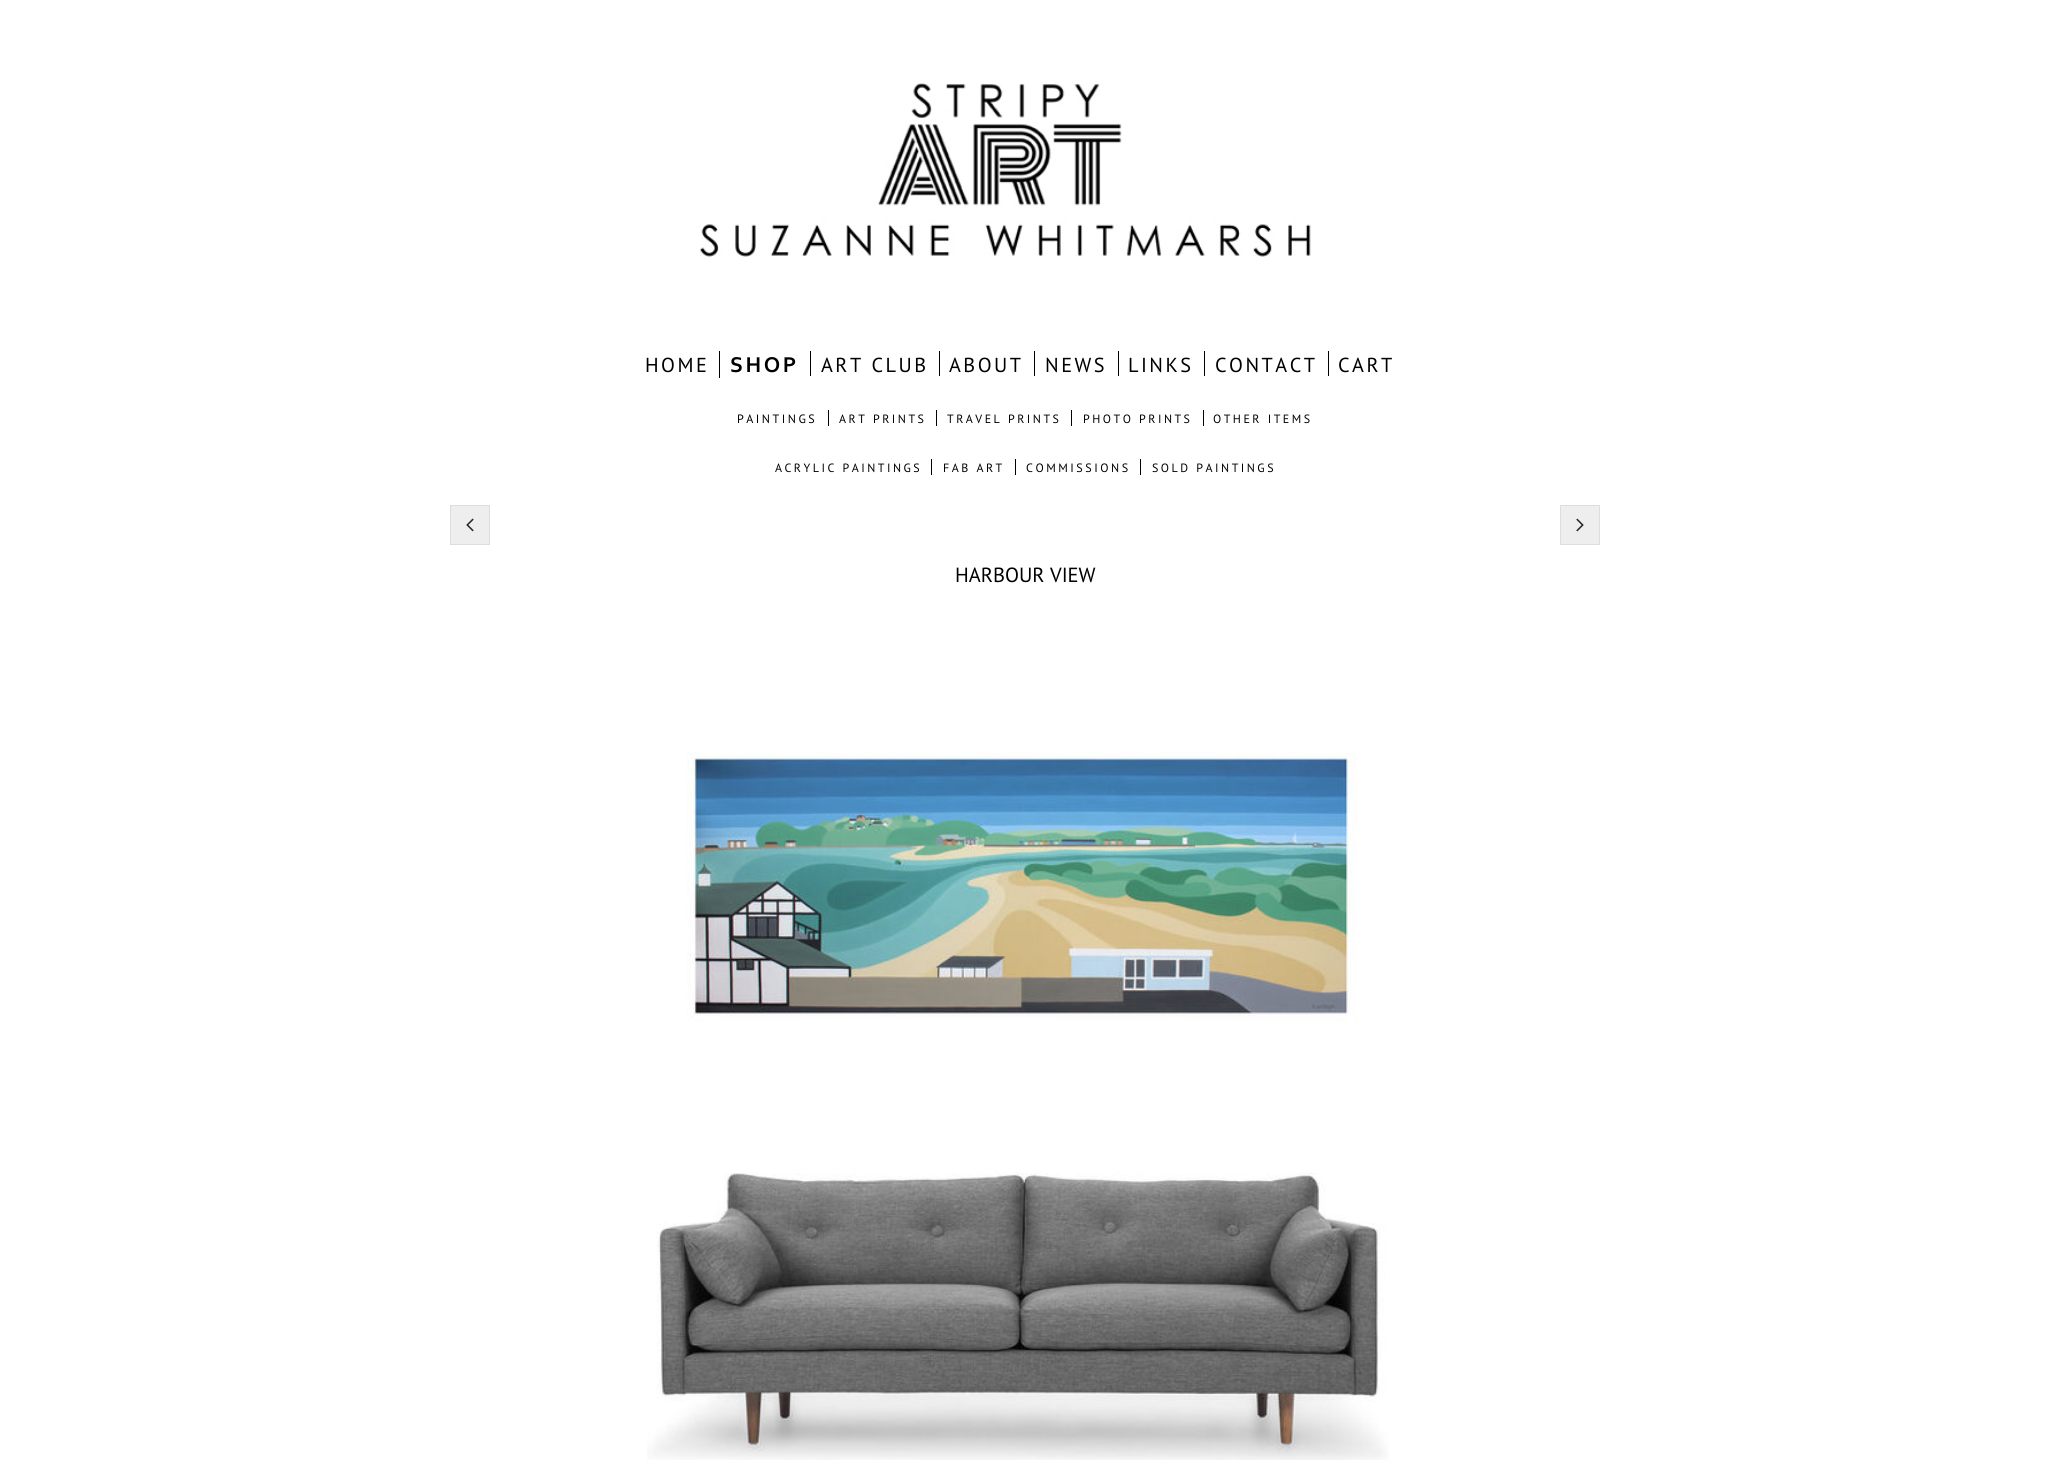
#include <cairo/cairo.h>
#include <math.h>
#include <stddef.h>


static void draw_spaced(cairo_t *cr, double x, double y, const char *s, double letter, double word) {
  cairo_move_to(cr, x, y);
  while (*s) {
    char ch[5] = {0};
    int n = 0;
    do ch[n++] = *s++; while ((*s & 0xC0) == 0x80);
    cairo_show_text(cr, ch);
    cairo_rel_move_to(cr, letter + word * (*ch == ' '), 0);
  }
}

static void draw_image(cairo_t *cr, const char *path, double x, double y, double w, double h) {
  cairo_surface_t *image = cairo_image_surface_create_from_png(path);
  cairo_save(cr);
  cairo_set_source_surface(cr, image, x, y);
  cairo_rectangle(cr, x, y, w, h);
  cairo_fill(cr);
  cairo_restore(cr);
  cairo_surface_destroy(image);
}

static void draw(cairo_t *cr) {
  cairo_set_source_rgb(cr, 1, 1, 1);
  cairo_paint(cr);
  draw_image(cr, "images/1.png", 700, 83, 611, 174);
  cairo_set_source_rgb(cr, 0, 0, 0);
  cairo_rectangle(cr, 719, 351, 1, 27);
  cairo_fill(cr);
  cairo_rectangle(cr, 810, 351, 1, 25);
  cairo_fill(cr);
  cairo_rectangle(cr, 939, 351, 1, 25);
  cairo_fill(cr);
  cairo_rectangle(cr, 1034, 351, 1, 25);
  cairo_fill(cr);
  cairo_rectangle(cr, 1118, 351, 1, 25);
  cairo_fill(cr);
  cairo_rectangle(cr, 1204, 351, 1, 25);
  cairo_fill(cr);
  cairo_rectangle(cr, 1328, 351, 1, 25);
  cairo_fill(cr);
  cairo_set_source_rgb(cr, 3 / 255.0, 3 / 255.0, 3 / 255.0);
  cairo_rectangle(cr, 828, 410, 1, 16);
  cairo_fill(cr);
  cairo_rectangle(cr, 936, 410, 1, 16);
  cairo_fill(cr);
  cairo_rectangle(cr, 1071, 410, 1, 16);
  cairo_fill(cr);
  cairo_rectangle(cr, 1203, 410, 1, 16);
  cairo_fill(cr);
  cairo_rectangle(cr, 931, 459, 1, 16);
  cairo_fill(cr);
  cairo_set_source_rgb(cr, 0, 0, 0);
  cairo_rectangle(cr, 1015, 459, 1, 16);
  cairo_fill(cr);
  cairo_set_source_rgb(cr, 3 / 255.0, 3 / 255.0, 3 / 255.0);
  cairo_rectangle(cr, 1140, 459, 1, 16);
  cairo_fill(cr);
  cairo_set_source_rgb(cr, 238 / 255.0, 238 / 255.0, 238 / 255.0);
  cairo_rectangle(cr, 450.5, 505.5, 39, 39);
  cairo_fill_preserve(cr);
  cairo_set_source_rgb(cr, 221 / 255.0, 221 / 255.0, 221 / 255.0);
  cairo_set_line_width(cr, 1);
  cairo_stroke(cr);
  draw_image(cr, "images/2.png", 466, 518, 8, 14);
  cairo_set_source_rgb(cr, 238 / 255.0, 238 / 255.0, 238 / 255.0);
  cairo_rectangle(cr, 1560.5, 505.5, 39, 39);
  cairo_fill_preserve(cr);
  cairo_set_source_rgb(cr, 221 / 255.0, 221 / 255.0, 221 / 255.0);
  cairo_stroke(cr);
  draw_image(cr, "images/3.png", 1576, 518, 8, 14);
  draw_image(cr, "images/4.png", 647, 752, 742, 708);
  cairo_select_font_face(cr, "PT Sans", CAIRO_FONT_SLANT_NORMAL, CAIRO_FONT_WEIGHT_NORMAL);
  cairo_set_font_size(cr, 20.25);
  cairo_set_source_rgb(cr, 0, 0, 0);
  draw_spaced(cr, 645, 372, "HOME", 2.5, 0);
  cairo_select_font_face(cr, "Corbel", CAIRO_FONT_SLANT_NORMAL, CAIRO_FONT_WEIGHT_BOLD);
  cairo_set_font_size(cr, 22.5);
  draw_spaced(cr, 730, 372, "SHOP", 2.5, 0);
  cairo_select_font_face(cr, "PT Sans", CAIRO_FONT_SLANT_NORMAL, CAIRO_FONT_WEIGHT_NORMAL);
  cairo_set_font_size(cr, 20.25);
  draw_spaced(cr, 821, 372, "ART CLUB", 2.5, 0);
  draw_spaced(cr, 949, 372, "ABOUT", 2.5, 0);
  draw_spaced(cr, 1045, 372, "NEWS", 2.5, 0);
  draw_spaced(cr, 1128, 372, "LINKS", 2.5, 0);
  draw_spaced(cr, 1215, 372, "CONTACT", 2.5, 0);
  draw_spaced(cr, 1338, 372, "CART", 2.5, 0);
  cairo_set_font_size(cr, 12.1);
  draw_spaced(cr, 737, 423, "PAINTINGS", 2.5, 0);
  cairo_set_font_size(cr, 12);
  draw_spaced(cr, 839, 423, "ART PRINTS", 2.5, 0);
  draw_spaced(cr, 947, 423, "TRAVEL PRINTS", 2.5, 0);
  draw_spaced(cr, 1083, 423, "PHOTO PRINTS", 2.5, 0);
  draw_spaced(cr, 1213, 423, "OTHER ITEMS", 2.5, 0);
  draw_spaced(cr, 775, 472, "ACRYLIC PAINTINGS", 2.5, 0);
  draw_spaced(cr, 943, 472, "FAB ART", 2.5, 0);
  cairo_set_font_size(cr, 12.1);
  draw_spaced(cr, 1026, 472, "COMMISSIONS", 2.5, 0);
  cairo_set_font_size(cr, 12);
  draw_spaced(cr, 1152, 472, "SOLD PAINTINGS", 2.5, 0);
  cairo_set_font_size(cr, 20.5);
  cairo_move_to(cr, 955, 582);
  cairo_show_text(cr, "HARBOUR VIEW");
}

int main(void) {
  cairo_surface_t *surface = cairo_image_surface_create(CAIRO_FORMAT_RGB24, 2049, 1460);
  cairo_t *cr = cairo_create(surface);
  cairo_font_options_t *options = cairo_font_options_create();
  cairo_font_options_set_hint_metrics(options, CAIRO_HINT_METRICS_OFF);
  cairo_font_options_set_hint_style(options, CAIRO_HINT_STYLE_NONE);
  cairo_set_font_options(cr, options);
  cairo_set_miter_limit(cr, 4);
  draw(cr);
  cairo_surface_write_to_png(surface, "out.png");
  cairo_font_options_destroy(options);
  cairo_destroy(cr);
  cairo_surface_destroy(surface);
  return 0;
}
